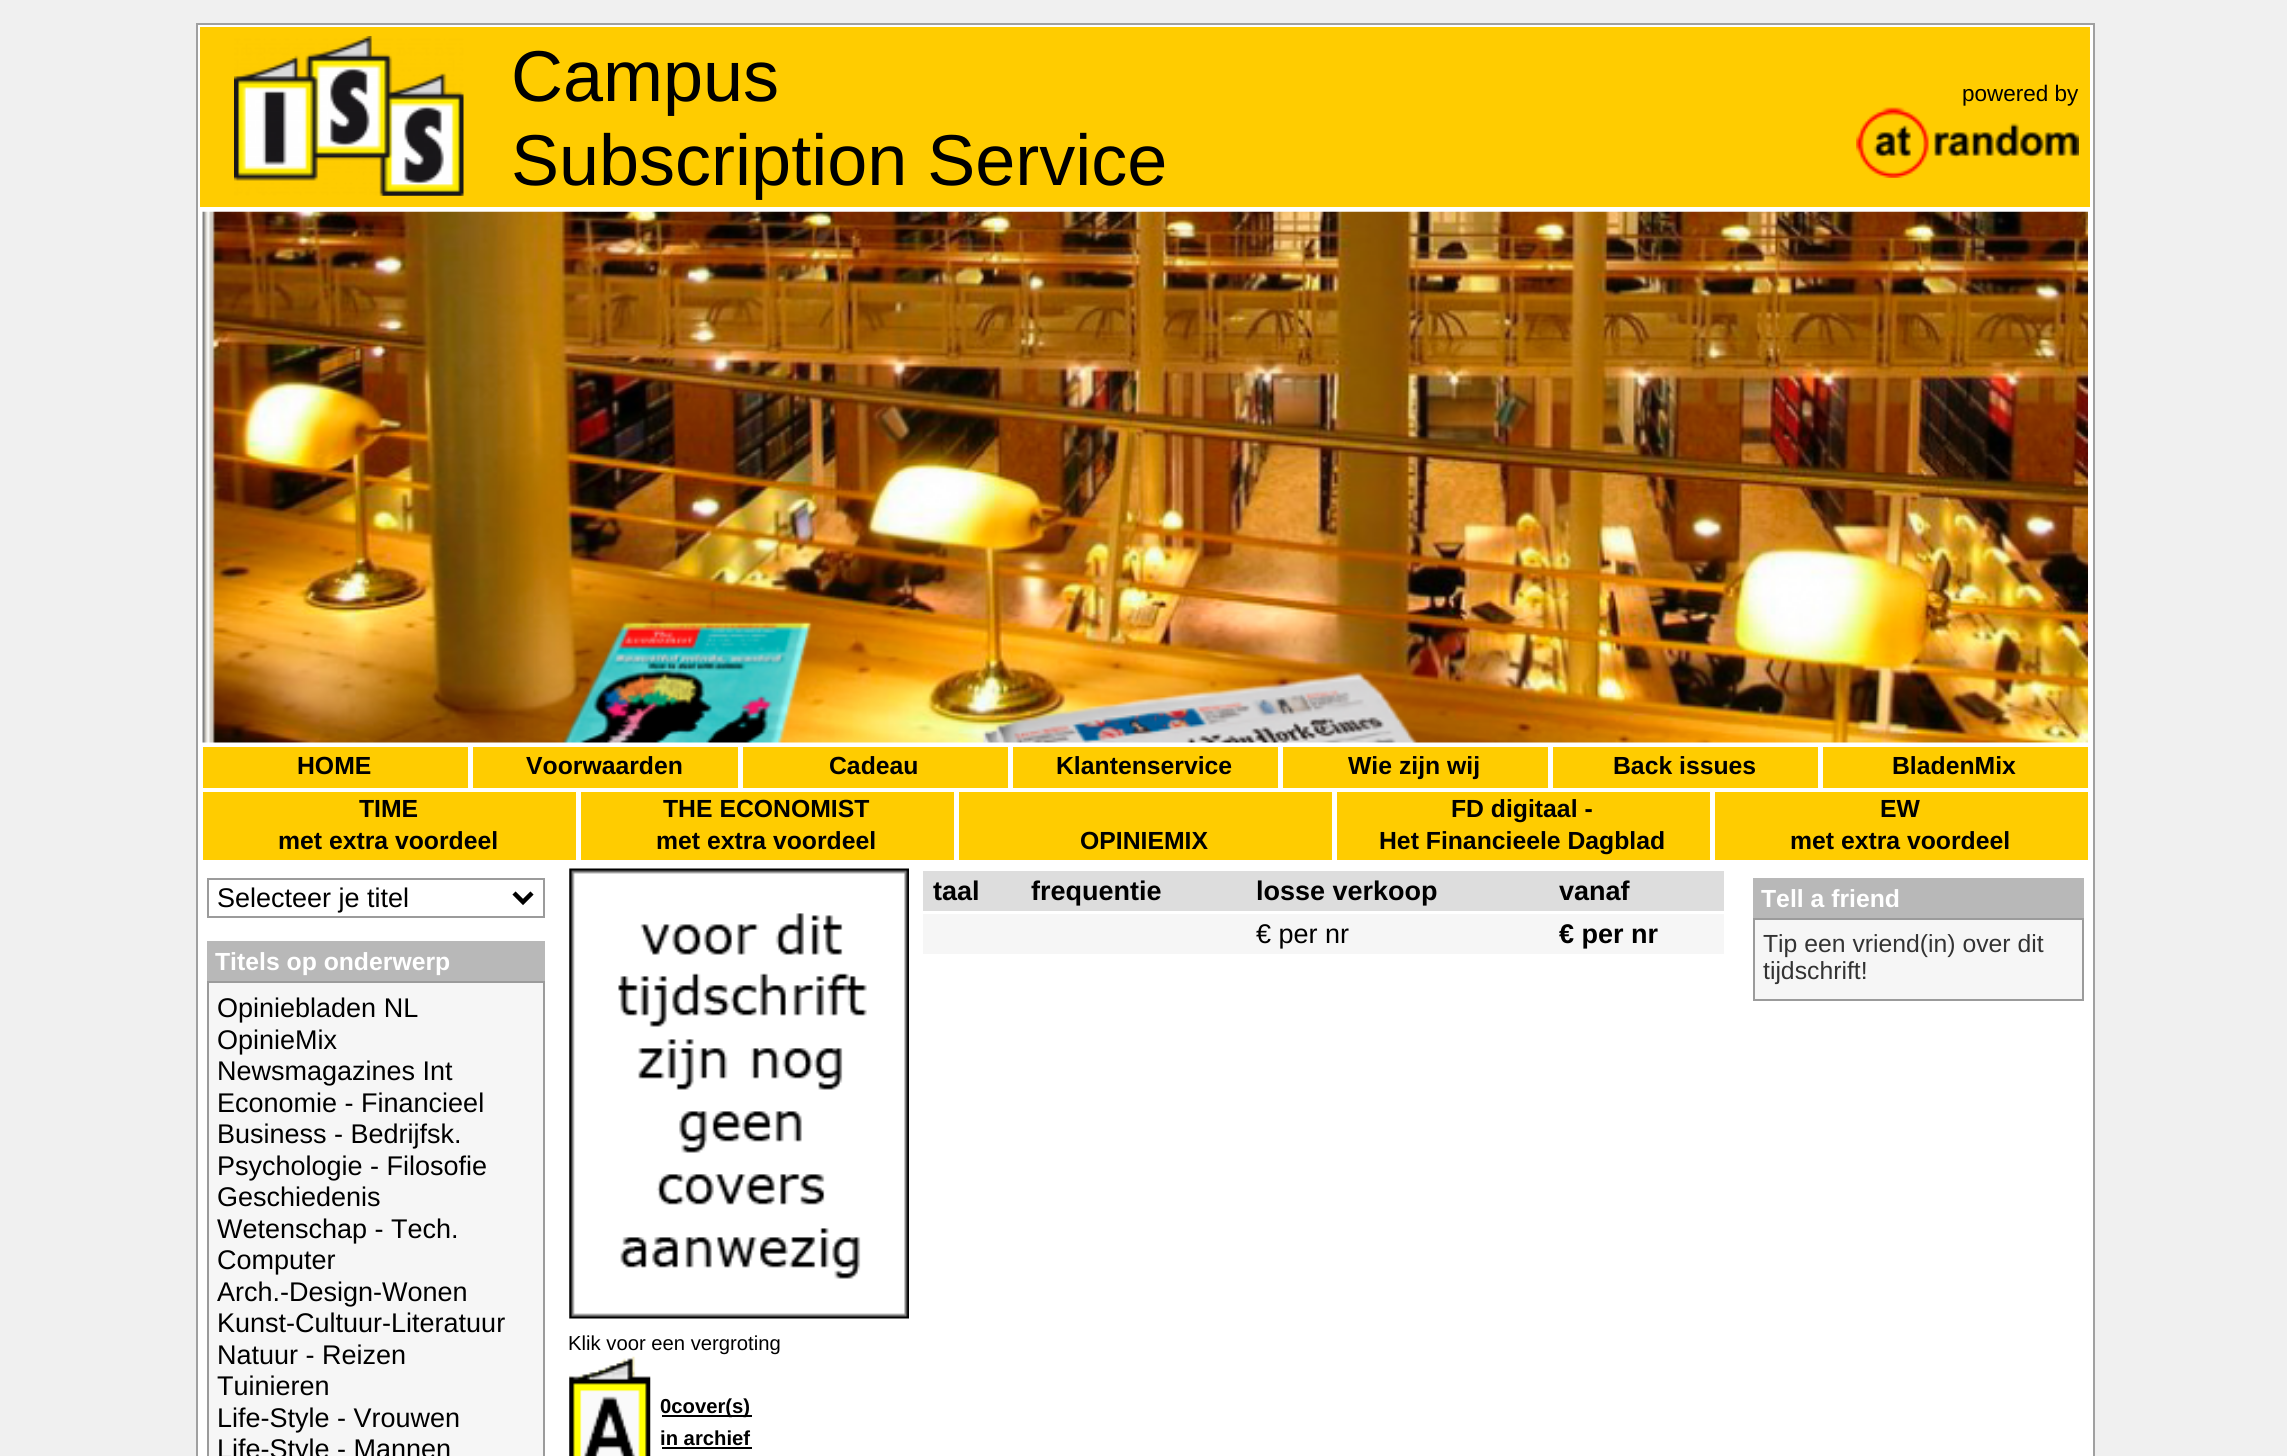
#include <cairo/cairo.h>
#include <math.h>
#include <stddef.h>


static void draw_image(cairo_t *cr, const char *path, double x, double y, double w, double h) {
  cairo_surface_t *image = cairo_image_surface_create_from_png(path);
  cairo_save(cr);
  cairo_set_source_surface(cr, image, x, y);
  cairo_rectangle(cr, x, y, w, h);
  cairo_fill(cr);
  cairo_restore(cr);
  cairo_surface_destroy(image);
}

static void draw(cairo_t *cr) {
  cairo_set_source_rgb(cr, 240 / 255.0, 240 / 255.0, 240 / 255.0);
  cairo_paint(cr);
  cairo_set_source_rgb(cr, 1, 1, 1);
  cairo_rectangle(cr, 197, 24, 1897, 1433);
  cairo_fill_preserve(cr);
  cairo_set_source_rgb(cr, 160 / 255.0, 160 / 255.0, 160 / 255.0);
  cairo_stroke(cr);
  cairo_set_source_rgb(cr, 1, 204 / 255.0, 0);
  cairo_rectangle(cr, 200, 27, 1890, 180);
  cairo_fill(cr);
  draw_image(cr, "images/1.png", 234, 36, 230, 160);
  draw_image(cr, "images/2.png", 1856, 107, 223, 71);
  draw_image(cr, "images/3.png", 202, 211, 1886, 532);
  cairo_rectangle(cr, 203, 747, 1885, 41);
  cairo_fill(cr);
  cairo_set_source_rgb(cr, 1, 1, 1);
  cairo_rectangle(cr, 468, 747, 5, 41);
  cairo_fill(cr);
  cairo_rectangle(cr, 738, 747, 5, 41);
  cairo_fill(cr);
  cairo_rectangle(cr, 1008, 747, 5, 41);
  cairo_fill(cr);
  cairo_rectangle(cr, 1278, 747, 5, 41);
  cairo_fill(cr);
  cairo_rectangle(cr, 1548, 747, 5, 41);
  cairo_fill(cr);
  cairo_rectangle(cr, 1818, 747, 5, 41);
  cairo_fill(cr);
  cairo_set_source_rgb(cr, 1, 204 / 255.0, 0);
  cairo_rectangle(cr, 203, 792, 1885, 68);
  cairo_fill(cr);
  cairo_set_source_rgb(cr, 1, 1, 1);
  cairo_rectangle(cr, 576, 792, 5, 68);
  cairo_fill(cr);
  cairo_rectangle(cr, 954, 792, 5, 68);
  cairo_fill(cr);
  cairo_rectangle(cr, 1332, 792, 5, 68);
  cairo_fill(cr);
  cairo_rectangle(cr, 1710, 792, 5, 68);
  cairo_fill(cr);
  cairo_rectangle(cr, 208, 879, 336, 38);
  cairo_set_source_rgb(cr, 155 / 255.0, 155 / 255.0, 155 / 255.0);
  cairo_stroke(cr);
  cairo_new_path(cr);
  cairo_move_to(cr, 514, 893);
  cairo_line_to(cr, 523, 902);
  cairo_line_to(cr, 532, 893);
  cairo_set_source_rgb(cr, 0, 0, 0);
  cairo_set_line_width(cr, 4.5);
  cairo_stroke(cr);
  cairo_set_source_rgb(cr, 184 / 255.0, 184 / 255.0, 184 / 255.0);
  cairo_rectangle(cr, 207, 941, 338, 40);
  cairo_fill(cr);
  cairo_set_source_rgb(cr, 246 / 255.0, 246 / 255.0, 246 / 255.0);
  cairo_rectangle(cr, 208, 982, 336, 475);
  cairo_fill_preserve(cr);
  cairo_set_source_rgb(cr, 155 / 255.0, 155 / 255.0, 155 / 255.0);
  cairo_set_line_width(cr, 2);
  cairo_stroke(cr);
  cairo_set_source_rgb(cr, 221 / 255.0, 221 / 255.0, 221 / 255.0);
  cairo_rectangle(cr, 923, 871, 801, 40);
  cairo_fill(cr);
  cairo_set_source_rgb(cr, 246 / 255.0, 246 / 255.0, 246 / 255.0);
  cairo_rectangle(cr, 923, 914, 801, 40);
  cairo_fill(cr);
  draw_image(cr, "images/4.png", 569, 868, 340, 451);
  draw_image(cr, "images/5.png", 569, 1356, 82, 100);
  cairo_set_source_rgb(cr, 0, 0, 0);
  cairo_rectangle(cr, 662, 1415, 90, 2);
  cairo_fill(cr);
  cairo_rectangle(cr, 662, 1447, 90, 2);
  cairo_fill(cr);
  cairo_set_source_rgb(cr, 184 / 255.0, 184 / 255.0, 184 / 255.0);
  cairo_rectangle(cr, 1753, 878, 331, 40);
  cairo_fill(cr);
  cairo_set_source_rgb(cr, 246 / 255.0, 246 / 255.0, 246 / 255.0);
  cairo_rectangle(cr, 1754, 919, 329, 81);
  cairo_fill_preserve(cr);
  cairo_set_source_rgb(cr, 155 / 255.0, 155 / 255.0, 155 / 255.0);
  cairo_stroke(cr);
  cairo_select_font_face(cr, "Liberation Sans", CAIRO_FONT_SLANT_NORMAL, CAIRO_FONT_WEIGHT_NORMAL);
  cairo_set_font_size(cr, 72);
  cairo_set_source_rgb(cr, 0, 0, 0);
  cairo_move_to(cr, 511, 101);
  cairo_show_text(cr, "Campus");
  cairo_move_to(cr, 511, 185);
  cairo_show_text(cr, "Subscription Service");
  cairo_set_font_size(cr, 22.5);
  cairo_move_to(cr, 1962, 101);
  cairo_show_text(cr, "powered by");
  cairo_select_font_face(cr, "Liberation Sans", CAIRO_FONT_SLANT_NORMAL, CAIRO_FONT_WEIGHT_BOLD);
  cairo_set_font_size(cr, 24.75);
  cairo_move_to(cr, 297, 774);
  cairo_show_text(cr, "HOME");
  cairo_move_to(cr, 526, 774);
  cairo_show_text(cr, "Voorwaarden");
  cairo_move_to(cr, 829, 774);
  cairo_show_text(cr, "Cadeau");
  cairo_move_to(cr, 1056, 774);
  cairo_show_text(cr, "Klantenservice");
  cairo_move_to(cr, 1348, 774);
  cairo_show_text(cr, "Wie zijn wij");
  cairo_move_to(cr, 1613, 774);
  cairo_show_text(cr, "Back issues");
  cairo_move_to(cr, 1892, 774);
  cairo_show_text(cr, "BladenMix");
  cairo_move_to(cr, 359, 817);
  cairo_show_text(cr, "TIME");
  cairo_move_to(cr, 278, 849);
  cairo_show_text(cr, "met extra voordeel");
  cairo_move_to(cr, 663, 817);
  cairo_show_text(cr, "THE ECONOMIST");
  cairo_move_to(cr, 656, 849);
  cairo_show_text(cr, "met extra voordeel");
  cairo_move_to(cr, 1080, 849);
  cairo_show_text(cr, "OPINIEMIX");
  cairo_move_to(cr, 1451, 817);
  cairo_show_text(cr, "FD digitaal -");
  cairo_move_to(cr, 1379, 849);
  cairo_show_text(cr, "Het Financieele Dagblad");
  cairo_move_to(cr, 1880, 817);
  cairo_show_text(cr, "EW");
  cairo_move_to(cr, 1790, 849);
  cairo_show_text(cr, "met extra voordeel");
  cairo_select_font_face(cr, "Liberation Sans", CAIRO_FONT_SLANT_NORMAL, CAIRO_FONT_WEIGHT_NORMAL);
  cairo_set_font_size(cr, 27);
  cairo_move_to(cr, 217, 907);
  cairo_show_text(cr, "Selecteer je titel");
  cairo_select_font_face(cr, "Liberation Sans", CAIRO_FONT_SLANT_NORMAL, CAIRO_FONT_WEIGHT_BOLD);
  cairo_set_font_size(cr, 24.75);
  cairo_set_source_rgb(cr, 1, 1, 1);
  cairo_move_to(cr, 215, 970);
  cairo_show_text(cr, "Titels op onderwerp");
  cairo_select_font_face(cr, "Liberation Sans", CAIRO_FONT_SLANT_NORMAL, CAIRO_FONT_WEIGHT_NORMAL);
  cairo_set_font_size(cr, 27);
  cairo_set_source_rgb(cr, 0, 0, 0);
  cairo_move_to(cr, 217, 1017);
  cairo_show_text(cr, "Opiniebladen NL");
  cairo_move_to(cr, 217, 1049);
  cairo_show_text(cr, "OpinieMix");
  cairo_move_to(cr, 217, 1080);
  cairo_show_text(cr, "Newsmagazines Int");
  cairo_move_to(cr, 217, 1112);
  cairo_show_text(cr, "Economie - Financieel");
  cairo_move_to(cr, 217, 1143);
  cairo_show_text(cr, "Business - Bedrijfsk.");
  cairo_move_to(cr, 217, 1175);
  cairo_show_text(cr, "Psychologie - Filosofie");
  cairo_move_to(cr, 217, 1206);
  cairo_show_text(cr, "Geschiedenis");
  cairo_move_to(cr, 217, 1238);
  cairo_show_text(cr, "Wetenschap - Tech.");
  cairo_move_to(cr, 217, 1269);
  cairo_show_text(cr, "Computer");
  cairo_move_to(cr, 217, 1301);
  cairo_show_text(cr, "Arch.-Design-Wonen");
  cairo_move_to(cr, 217, 1332);
  cairo_show_text(cr, "Kunst-Cultuur-Literatuur");
  cairo_move_to(cr, 217, 1364);
  cairo_show_text(cr, "Natuur - Reizen");
  cairo_move_to(cr, 217, 1395);
  cairo_show_text(cr, "Tuinieren");
  cairo_move_to(cr, 217, 1427);
  cairo_show_text(cr, "Life-Style - Vrouwen");
  cairo_move_to(cr, 217, 1458);
  cairo_show_text(cr, "Life-Style - Mannen");
  cairo_select_font_face(cr, "Liberation Sans", CAIRO_FONT_SLANT_NORMAL, CAIRO_FONT_WEIGHT_BOLD);
  cairo_move_to(cr, 933, 900);
  cairo_show_text(cr, "taal");
  cairo_move_to(cr, 1031, 900);
  cairo_show_text(cr, "frequentie");
  cairo_move_to(cr, 1256, 900);
  cairo_show_text(cr, "losse verkoop");
  cairo_move_to(cr, 1559, 900);
  cairo_show_text(cr, "vanaf");
  cairo_select_font_face(cr, "Liberation Sans", CAIRO_FONT_SLANT_NORMAL, CAIRO_FONT_WEIGHT_NORMAL);
  cairo_move_to(cr, 1256, 943);
  cairo_show_text(cr, "€ per nr");
  cairo_select_font_face(cr, "Liberation Sans", CAIRO_FONT_SLANT_NORMAL, CAIRO_FONT_WEIGHT_BOLD);
  cairo_move_to(cr, 1559, 943);
  cairo_show_text(cr, "€ per nr");
  cairo_select_font_face(cr, "Liberation Sans", CAIRO_FONT_SLANT_NORMAL, CAIRO_FONT_WEIGHT_NORMAL);
  cairo_set_font_size(cr, 20.25);
  cairo_move_to(cr, 568, 1350);
  cairo_show_text(cr, "Klik voor een vergroting");
  cairo_select_font_face(cr, "Liberation Sans", CAIRO_FONT_SLANT_NORMAL, CAIRO_FONT_WEIGHT_BOLD);
  cairo_move_to(cr, 660, 1413);
  cairo_show_text(cr, "0cover(s)");
  cairo_move_to(cr, 660, 1445);
  cairo_show_text(cr, "in archief");
  cairo_set_font_size(cr, 24.75);
  cairo_set_source_rgb(cr, 1, 1, 1);
  cairo_move_to(cr, 1761, 907);
  cairo_show_text(cr, "Tell a friend");
  cairo_select_font_face(cr, "Liberation Sans", CAIRO_FONT_SLANT_NORMAL, CAIRO_FONT_WEIGHT_NORMAL);
  cairo_set_source_rgb(cr, 51 / 255.0, 51 / 255.0, 51 / 255.0);
  cairo_move_to(cr, 1763, 952);
  cairo_show_text(cr, "Tip een vriend(in) over dit");
  cairo_move_to(cr, 1763, 979);
  cairo_show_text(cr, "tijdschrift!");
}

int main(void) {
  cairo_surface_t *surface = cairo_image_surface_create(CAIRO_FORMAT_RGB24, 2287, 1456);
  cairo_t *cr = cairo_create(surface);
  cairo_font_options_t *options = cairo_font_options_create();
  cairo_font_options_set_hint_metrics(options, CAIRO_HINT_METRICS_OFF);
  cairo_font_options_set_hint_style(options, CAIRO_HINT_STYLE_NONE);
  cairo_set_font_options(cr, options);
  cairo_set_miter_limit(cr, 4);
  draw(cr);
  cairo_surface_write_to_png(surface, "out.png");
  cairo_font_options_destroy(options);
  cairo_destroy(cr);
  cairo_surface_destroy(surface);
  return 0;
}
